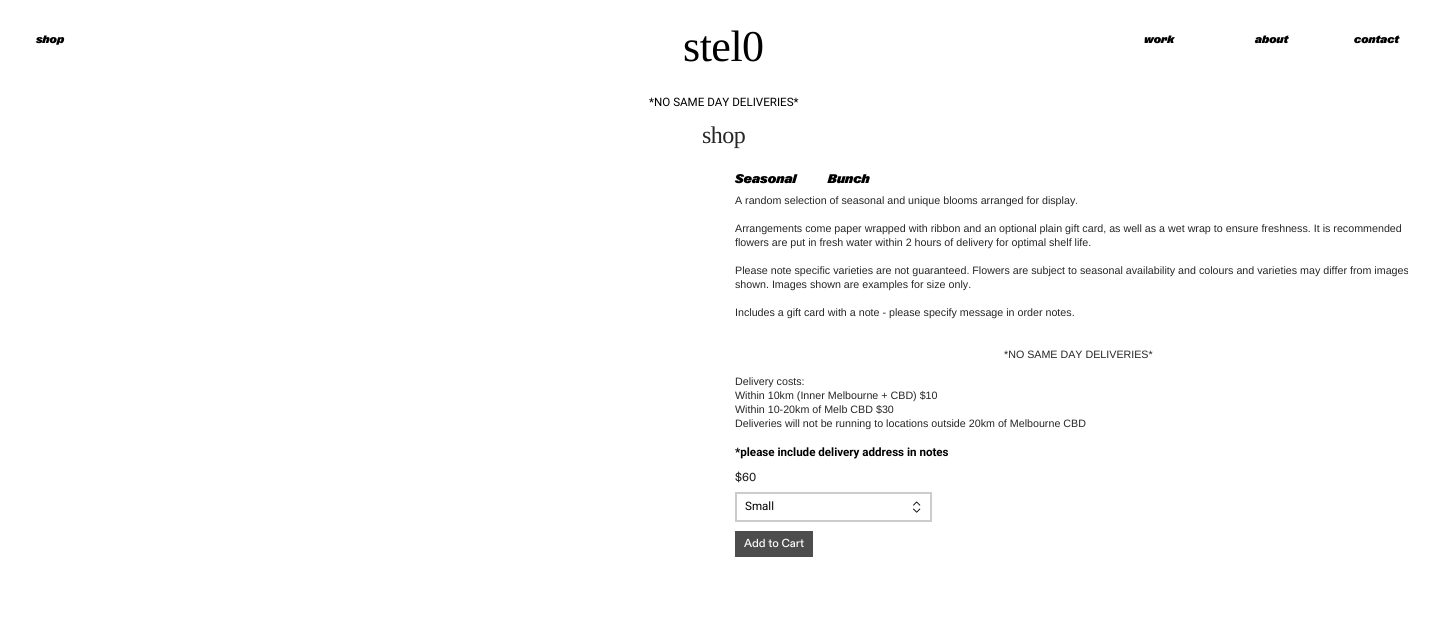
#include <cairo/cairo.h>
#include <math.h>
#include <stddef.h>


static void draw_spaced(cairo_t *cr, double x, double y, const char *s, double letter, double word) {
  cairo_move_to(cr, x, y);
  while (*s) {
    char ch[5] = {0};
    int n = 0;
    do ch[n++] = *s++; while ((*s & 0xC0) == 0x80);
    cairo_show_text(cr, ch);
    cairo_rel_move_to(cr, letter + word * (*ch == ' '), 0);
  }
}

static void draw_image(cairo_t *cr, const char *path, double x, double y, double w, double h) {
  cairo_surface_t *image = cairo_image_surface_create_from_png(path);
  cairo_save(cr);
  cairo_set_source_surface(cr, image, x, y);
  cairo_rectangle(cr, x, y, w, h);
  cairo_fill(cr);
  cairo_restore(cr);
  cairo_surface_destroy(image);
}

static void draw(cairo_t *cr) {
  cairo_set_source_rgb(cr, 1, 1, 1);
  cairo_paint(cr);
  draw_image(cr, "images/1.png", 913, 501, 8, 12);
  cairo_rectangle(cr, 736, 493, 195, 28);
  cairo_set_source_rgb(cr, 204 / 255.0, 204 / 255.0, 204 / 255.0);
  cairo_stroke(cr);
  cairo_set_source_rgb(cr, 77 / 255.0, 77 / 255.0, 77 / 255.0);
  cairo_rectangle(cr, 735, 531, 78, 26);
  cairo_fill(cr);
  cairo_select_font_face(cr, "Liberation Serif", CAIRO_FONT_SLANT_NORMAL, CAIRO_FONT_WEIGHT_NORMAL);
  cairo_set_font_size(cr, 44);
  cairo_set_source_rgb(cr, 0, 0, 0);
  draw_spaced(cr, 683, 61, "stel0", -0.5, 0);
  cairo_select_font_face(cr, "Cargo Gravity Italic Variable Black", CAIRO_FONT_SLANT_ITALIC, CAIRO_FONT_WEIGHT_NORMAL);
  cairo_set_font_size(cr, 10.7);
  cairo_move_to(cr, 36, 43);
  cairo_show_text(cr, "shop");
  cairo_move_to(cr, 1144, 43);
  cairo_show_text(cr, "work");
  cairo_move_to(cr, 1255, 43);
  cairo_show_text(cr, "about");
  cairo_move_to(cr, 1354, 43);
  cairo_show_text(cr, "contact");
  cairo_select_font_face(cr, "Roboto", CAIRO_FONT_SLANT_NORMAL, CAIRO_FONT_WEIGHT_NORMAL);
  cairo_set_font_size(cr, 11.6);
  cairo_move_to(cr, 649, 106);
  cairo_show_text(cr, "*NO SAME DAY DELIVERIES*");
  cairo_select_font_face(cr, "Liberation Serif", CAIRO_FONT_SLANT_NORMAL, CAIRO_FONT_WEIGHT_NORMAL);
  cairo_set_font_size(cr, 24);
  cairo_set_source_rgb(cr, 38 / 255.0, 38 / 255.0, 38 / 255.0);
  draw_spaced(cr, 702, 143, "shop", -0.5, 0);
  cairo_select_font_face(cr, "Cargo Gravity Italic Variable Black", CAIRO_FONT_SLANT_ITALIC, CAIRO_FONT_WEIGHT_NORMAL);
  cairo_set_font_size(cr, 12.5);
  cairo_set_source_rgb(cr, 0, 0, 0);
  draw_spaced(cr, 735, 183, "Seasonal Bunch", 0, 29);
  cairo_select_font_face(cr, "Liberation Sans", CAIRO_FONT_SLANT_NORMAL, CAIRO_FONT_WEIGHT_NORMAL);
  cairo_set_font_size(cr, 10.7);
  cairo_set_source_rgb(cr, 38 / 255.0, 38 / 255.0, 38 / 255.0);
  cairo_move_to(cr, 735, 204);
  cairo_show_text(cr, "A random selection of seasonal and unique blooms arranged for display.");
  cairo_move_to(cr, 735, 232);
  cairo_show_text(cr, "Arrangements come paper wrapped with ribbon and an optional plain gift card, as well as a wet wrap to ensure freshness. It is recommended");
  cairo_move_to(cr, 735, 246);
  cairo_show_text(cr, "flowers are put in fresh water within 2 hours of delivery for optimal shelf life.");
  cairo_move_to(cr, 735, 274);
  cairo_show_text(cr, "Please note specific varieties are not guaranteed. Flowers are subject to seasonal availability and colours and varieties may differ from images");
  cairo_move_to(cr, 735, 288);
  cairo_show_text(cr, "shown. Images shown are examples for size only.");
  cairo_move_to(cr, 735, 316);
  cairo_show_text(cr, "Includes a gift card with a note - please specify message in order notes.");
  cairo_move_to(cr, 1004, 358);
  cairo_show_text(cr, "*NO SAME DAY DELIVERIES*");
  cairo_move_to(cr, 735, 385);
  cairo_show_text(cr, "Delivery costs:");
  cairo_move_to(cr, 735, 399);
  cairo_show_text(cr, "Within 10km (Inner Melbourne + CBD) $10");
  cairo_move_to(cr, 735, 413);
  cairo_show_text(cr, "Within 10-20km of Melb CBD $30");
  cairo_move_to(cr, 735, 427);
  cairo_show_text(cr, "Deliveries will not be running to locations outside 20km of Melbourne CBD");
  cairo_select_font_face(cr, "Roboto", CAIRO_FONT_SLANT_NORMAL, CAIRO_FONT_WEIGHT_BOLD);
  cairo_set_font_size(cr, 11.6);
  cairo_set_source_rgb(cr, 0, 0, 0);
  cairo_move_to(cr, 735, 456);
  cairo_show_text(cr, "*please include delivery address in notes");
  cairo_select_font_face(cr, "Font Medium", CAIRO_FONT_SLANT_NORMAL, CAIRO_FONT_WEIGHT_NORMAL);
  cairo_set_source_rgb(cr, 38 / 255.0, 38 / 255.0, 38 / 255.0);
  cairo_move_to(cr, 735, 481);
  cairo_show_text(cr, "$60");
  cairo_select_font_face(cr, "Roboto", CAIRO_FONT_SLANT_NORMAL, CAIRO_FONT_WEIGHT_NORMAL);
  cairo_set_source_rgb(cr, 0, 0, 0);
  cairo_move_to(cr, 745, 510);
  cairo_show_text(cr, "Small");
  cairo_select_font_face(cr, "Font Medium", CAIRO_FONT_SLANT_NORMAL, CAIRO_FONT_WEIGHT_NORMAL);
  cairo_set_source_rgb(cr, 1, 1, 1);
  cairo_move_to(cr, 744, 547);
  cairo_show_text(cr, "Add to Cart");
}

int main(void) {
  cairo_surface_t *surface = cairo_image_surface_create(CAIRO_FORMAT_RGB24, 1447, 619);
  cairo_t *cr = cairo_create(surface);
  cairo_font_options_t *options = cairo_font_options_create();
  cairo_font_options_set_hint_metrics(options, CAIRO_HINT_METRICS_OFF);
  cairo_font_options_set_hint_style(options, CAIRO_HINT_STYLE_NONE);
  cairo_set_font_options(cr, options);
  cairo_set_miter_limit(cr, 4);
  draw(cr);
  cairo_surface_write_to_png(surface, "out.png");
  cairo_font_options_destroy(options);
  cairo_destroy(cr);
  cairo_surface_destroy(surface);
  return 0;
}
